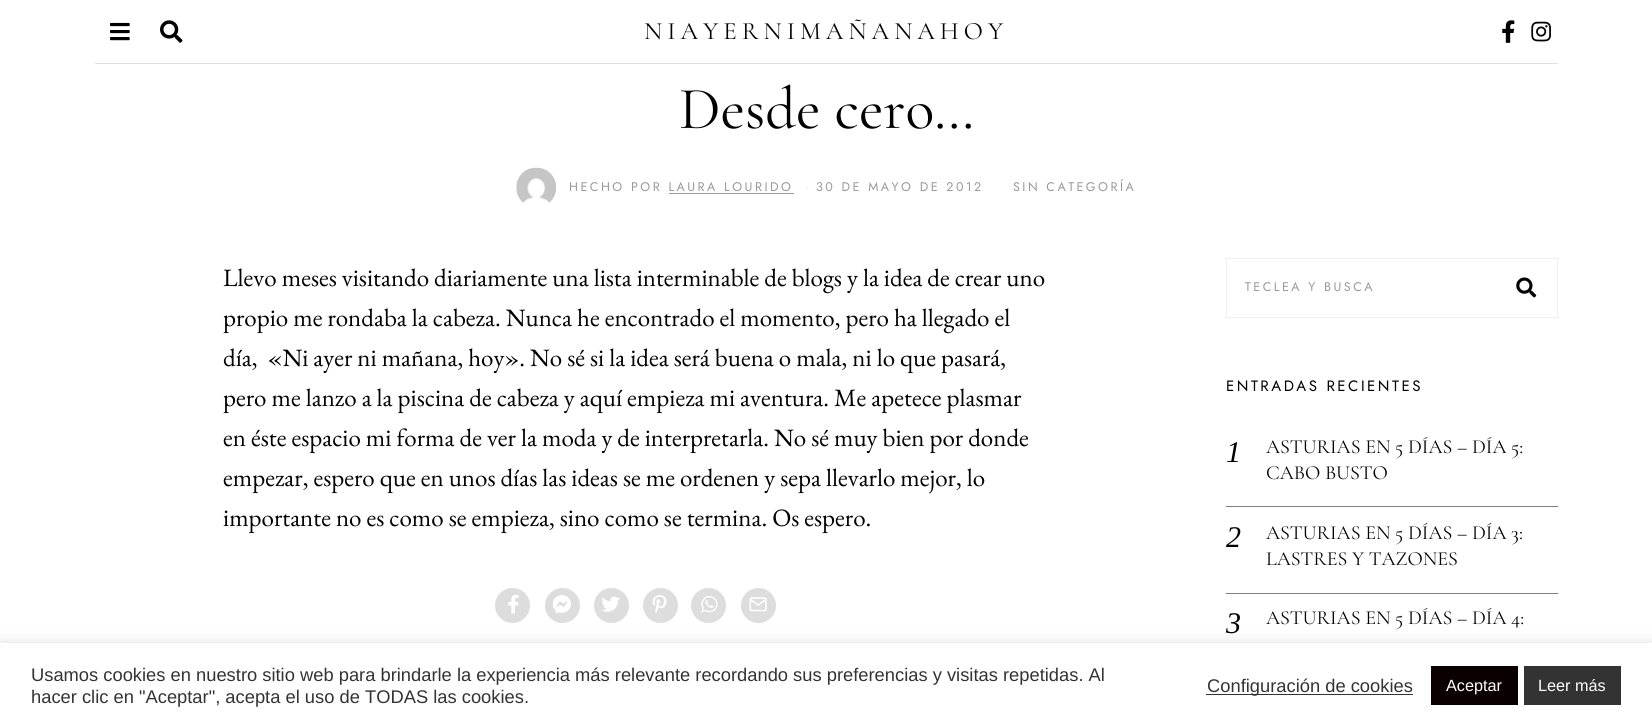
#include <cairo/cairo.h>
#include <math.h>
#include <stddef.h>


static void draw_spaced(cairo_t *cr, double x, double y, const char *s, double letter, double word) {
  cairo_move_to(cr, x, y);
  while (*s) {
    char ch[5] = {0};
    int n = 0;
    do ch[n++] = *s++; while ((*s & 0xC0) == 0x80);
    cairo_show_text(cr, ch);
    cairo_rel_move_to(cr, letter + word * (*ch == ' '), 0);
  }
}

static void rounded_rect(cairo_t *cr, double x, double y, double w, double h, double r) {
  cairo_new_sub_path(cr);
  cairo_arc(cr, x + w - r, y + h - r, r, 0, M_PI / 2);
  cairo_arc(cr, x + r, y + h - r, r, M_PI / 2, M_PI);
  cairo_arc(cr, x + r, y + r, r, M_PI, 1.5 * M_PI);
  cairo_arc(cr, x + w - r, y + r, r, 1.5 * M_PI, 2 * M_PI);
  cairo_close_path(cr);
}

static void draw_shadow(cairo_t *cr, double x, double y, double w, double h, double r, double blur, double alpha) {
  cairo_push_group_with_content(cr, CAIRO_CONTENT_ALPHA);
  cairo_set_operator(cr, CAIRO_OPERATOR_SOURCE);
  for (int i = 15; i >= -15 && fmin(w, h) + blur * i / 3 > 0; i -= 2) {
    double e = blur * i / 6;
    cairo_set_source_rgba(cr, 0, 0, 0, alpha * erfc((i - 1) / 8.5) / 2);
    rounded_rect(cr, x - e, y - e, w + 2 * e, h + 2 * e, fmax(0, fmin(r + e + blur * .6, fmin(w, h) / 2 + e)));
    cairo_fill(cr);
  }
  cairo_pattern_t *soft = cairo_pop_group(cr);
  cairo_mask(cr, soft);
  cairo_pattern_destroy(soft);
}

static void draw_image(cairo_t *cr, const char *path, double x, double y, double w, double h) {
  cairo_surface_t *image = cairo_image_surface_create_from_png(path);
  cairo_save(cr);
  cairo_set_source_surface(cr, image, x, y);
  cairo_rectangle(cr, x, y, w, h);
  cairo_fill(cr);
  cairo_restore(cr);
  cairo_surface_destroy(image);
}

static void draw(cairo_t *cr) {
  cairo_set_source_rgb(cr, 1, 1, 1);
  cairo_paint(cr);
  draw_image(cr, "images/1.png", 110, 22, 20, 19);
  draw_image(cr, "images/2.png", 160, 20, 23, 23);
  draw_image(cr, "images/3.png", 1502, 20, 13, 23);
  draw_image(cr, "images/4.png", 1531, 21, 20, 21);
  cairo_set_source_rgb(cr, 224 / 255.0, 224 / 255.0, 224 / 255.0);
  cairo_rectangle(cr, 95, 63, 1463, 1);
  cairo_fill(cr);
  draw_image(cr, "images/5.png", 516, 167, 40, 36);
  cairo_set_source_rgb(cr, 153 / 255.0, 153 / 255.0, 153 / 255.0);
  cairo_rectangle(cr, 669, 193, 125, 1);
  cairo_fill(cr);
  cairo_set_source_rgb(cr, 221 / 255.0, 221 / 255.0, 221 / 255.0);
  cairo_arc(cr, 512.5, 605.5, 17.5, 0, 2 * M_PI);
  cairo_fill(cr);
  draw_image(cr, "images/6.png", 508, 594, 11, 20);
  cairo_arc(cr, 562.5, 605.5, 17.5, 0, 2 * M_PI);
  cairo_fill(cr);
  draw_image(cr, "images/7.png", 552, 595, 19, 19);
  cairo_arc(cr, 611.5, 605.5, 17.5, 0, 2 * M_PI);
  cairo_fill(cr);
  draw_image(cr, "images/8.png", 601, 596, 19, 16);
  cairo_arc(cr, 660.5, 605.5, 17.5, 0, 2 * M_PI);
  cairo_fill(cr);
  draw_image(cr, "images/9.png", 652, 595, 15, 18);
  cairo_arc(cr, 708.5, 605.5, 17.5, 0, 2 * M_PI);
  cairo_fill(cr);
  draw_image(cr, "images/10.png", 701, 596, 17, 17);
  cairo_arc(cr, 758.5, 605.5, 17.5, 0, 2 * M_PI);
  cairo_fill(cr);
  draw_image(cr, "images/11.png", 749, 597, 18, 15);
  cairo_rectangle(cr, 1226.5, 258.5, 331, 59);
  cairo_set_source_rgb(cr, 240 / 255.0, 240 / 255.0, 240 / 255.0);
  cairo_set_line_width(cr, 1);
  cairo_stroke(cr);
  draw_image(cr, "images/12.png", 1516, 277, 21, 21);
  cairo_set_source_rgb(cr, 128 / 255.0, 128 / 255.0, 128 / 255.0);
  cairo_rectangle(cr, 1226, 506, 332, 1);
  cairo_fill(cr);
  cairo_rectangle(cr, 1226, 593, 332, 1);
  cairo_fill(cr);
  cairo_set_source_rgb(cr, 172 / 255.0, 171 / 255.0, 171 / 255.0);
  draw_shadow(cr, 0, 641, 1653, 87, 0, 6, 0.3);
  cairo_set_source_rgb(cr, 1, 1, 1);
  cairo_rectangle(cr, 0, 643, 1652, 85);
  cairo_fill(cr);
  cairo_set_source_rgb(cr, 51 / 255.0, 51 / 255.0, 51 / 255.0);
  cairo_rectangle(cr, 1206, 694, 207, 1);
  cairo_fill(cr);
  cairo_set_source_rgb(cr, 10 / 255.0, 0, 0);
  cairo_rectangle(cr, 1431, 666, 87, 39);
  cairo_fill(cr);
  cairo_set_source_rgb(cr, 51 / 255.0, 51 / 255.0, 51 / 255.0);
  cairo_rectangle(cr, 1524, 666, 97, 39);
  cairo_fill(cr);
  cairo_select_font_face(cr, "Cormorant Garamond", CAIRO_FONT_SLANT_NORMAL, CAIRO_FONT_WEIGHT_NORMAL);
  cairo_set_font_size(cr, 25);
  cairo_set_source_rgb(cr, 0, 0, 0);
  draw_spaced(cr, 644, 39, "NIAYERNIMAÑANAHOY", 5, 0);
  cairo_set_font_size(cr, 60);
  cairo_move_to(cr, 679, 128);
  cairo_show_text(cr, "Desde cero…");
  cairo_select_font_face(cr, "Jost", CAIRO_FONT_SLANT_NORMAL, CAIRO_FONT_WEIGHT_NORMAL);
  cairo_set_font_size(cr, 12.5);
  cairo_set_source_rgb(cr, 153 / 255.0, 153 / 255.0, 153 / 255.0);
  draw_spaced(cr, 569, 191, "HECHO POR LAURA LOURIDO", 2.5, 0);
  cairo_set_source_rgb(cr, 214 / 255.0, 214 / 255.0, 214 / 255.0);
  draw_spaced(cr, 805, 191, "·", 2.5, 0);
  cairo_set_source_rgb(cr, 153 / 255.0, 153 / 255.0, 153 / 255.0);
  draw_spaced(cr, 816, 191, "30 DE MAYO DE 2012", 2.5, 0);
  draw_spaced(cr, 1013, 191, "SIN CATEGORÍA", 2.5, 0);
  cairo_select_font_face(cr, "EB Garamond", CAIRO_FONT_SLANT_NORMAL, CAIRO_FONT_WEIGHT_NORMAL);
  cairo_set_font_size(cr, 25);
  cairo_set_source_rgb(cr, 0, 0, 0);
  cairo_move_to(cr, 223, 286);
  cairo_show_text(cr, "Llevo meses visitando diariamente una lista interminable de blogs y la idea de crear uno");
  cairo_move_to(cr, 223, 326);
  cairo_show_text(cr, "propio me rondaba la cabeza. Nunca he encontrado el momento, pero ha llegado el");
  cairo_move_to(cr, 223, 366);
  cairo_show_text(cr, "día,  «Ni ayer ni mañana, hoy». No sé si la idea será buena o mala, ni lo que pasará,");
  cairo_move_to(cr, 223, 406);
  cairo_show_text(cr, "pero me lanzo a la piscina de cabeza y aquí empieza mi aventura. Me apetece plasmar");
  cairo_move_to(cr, 223, 446);
  cairo_show_text(cr, "en éste espacio mi forma de ver la moda y de interpretarla. No sé muy bien por donde");
  cairo_move_to(cr, 223, 486);
  cairo_show_text(cr, "empezar, espero que en unos días las ideas se me ordenen y sepa llevarlo mejor, lo");
  cairo_move_to(cr, 223, 526);
  cairo_show_text(cr, "importante no es como se empieza, sino como se termina. Os espero.");
  cairo_select_font_face(cr, "Jost", CAIRO_FONT_SLANT_NORMAL, CAIRO_FONT_WEIGHT_NORMAL);
  cairo_set_font_size(cr, 12.5);
  cairo_set_source_rgb(cr, 153 / 255.0, 153 / 255.0, 153 / 255.0);
  draw_spaced(cr, 1245, 291, "TECLEA Y BUSCA", 2.5, 0);
  cairo_set_font_size(cr, 15);
  cairo_set_source_rgb(cr, 0, 0, 0);
  draw_spaced(cr, 1226, 391, "ENTRADAS RECIENTES", 2.5, 0);
  cairo_select_font_face(cr, "Liberation Serif", CAIRO_FONT_SLANT_ITALIC, CAIRO_FONT_WEIGHT_NORMAL);
  cairo_set_font_size(cr, 30);
  cairo_move_to(cr, 1226, 462);
  cairo_show_text(cr, "1");
  cairo_select_font_face(cr, "Cormorant Garamond", CAIRO_FONT_SLANT_NORMAL, CAIRO_FONT_WEIGHT_NORMAL);
  cairo_set_font_size(cr, 20);
  cairo_move_to(cr, 1266, 453);
  cairo_show_text(cr, "ASTURIAS EN 5 DÍAS – DÍA 5:");
  cairo_move_to(cr, 1266, 479);
  cairo_show_text(cr, "CABO BUSTO");
  cairo_select_font_face(cr, "Liberation Serif", CAIRO_FONT_SLANT_ITALIC, CAIRO_FONT_WEIGHT_NORMAL);
  cairo_set_font_size(cr, 30);
  cairo_move_to(cr, 1226, 547);
  cairo_show_text(cr, "2");
  cairo_select_font_face(cr, "Cormorant Garamond", CAIRO_FONT_SLANT_NORMAL, CAIRO_FONT_WEIGHT_NORMAL);
  cairo_set_font_size(cr, 20);
  cairo_move_to(cr, 1266, 539);
  cairo_show_text(cr, "ASTURIAS EN 5 DÍAS – DÍA 3:");
  cairo_move_to(cr, 1266, 565);
  cairo_show_text(cr, "LASTRES Y TAZONES");
  cairo_select_font_face(cr, "Liberation Serif", CAIRO_FONT_SLANT_ITALIC, CAIRO_FONT_WEIGHT_NORMAL);
  cairo_set_font_size(cr, 30);
  cairo_move_to(cr, 1226, 633);
  cairo_show_text(cr, "3");
  cairo_select_font_face(cr, "Cormorant Garamond", CAIRO_FONT_SLANT_NORMAL, CAIRO_FONT_WEIGHT_NORMAL);
  cairo_set_font_size(cr, 20);
  cairo_move_to(cr, 1266, 624);
  cairo_show_text(cr, "ASTURIAS EN 5 DÍAS – DÍA 4:");
  cairo_select_font_face(cr, "Liberation Sans", CAIRO_FONT_SLANT_NORMAL, CAIRO_FONT_WEIGHT_NORMAL);
  cairo_set_font_size(cr, 18.33);
  cairo_set_source_rgb(cr, 51 / 255.0, 51 / 255.0, 51 / 255.0);
  cairo_move_to(cr, 31, 681);
  cairo_show_text(cr, "Usamos cookies en nuestro sitio web para brindarle la experiencia más relevante recordando sus preferencias y visitas repetidas. Al");
  cairo_move_to(cr, 31, 703);
  cairo_show_text(cr, "hacer clic en \"Aceptar\", acepta el uso de TODAS las cookies.");
  cairo_move_to(cr, 1207, 692);
  cairo_show_text(cr, "Configuración de cookies");
  cairo_set_font_size(cr, 16.25);
  cairo_set_source_rgb(cr, 1, 1, 1);
  cairo_move_to(cr, 1446, 691);
  cairo_show_text(cr, "Aceptar");
  cairo_move_to(cr, 1538, 691);
  cairo_show_text(cr, "Leer más");
}

int main(void) {
  cairo_surface_t *surface = cairo_image_surface_create(CAIRO_FORMAT_RGB24, 1652, 728);
  cairo_t *cr = cairo_create(surface);
  cairo_font_options_t *options = cairo_font_options_create();
  cairo_font_options_set_hint_metrics(options, CAIRO_HINT_METRICS_OFF);
  cairo_font_options_set_hint_style(options, CAIRO_HINT_STYLE_NONE);
  cairo_set_font_options(cr, options);
  cairo_set_miter_limit(cr, 4);
  draw(cr);
  cairo_surface_write_to_png(surface, "out.png");
  cairo_font_options_destroy(options);
  cairo_destroy(cr);
  cairo_surface_destroy(surface);
  return 0;
}
